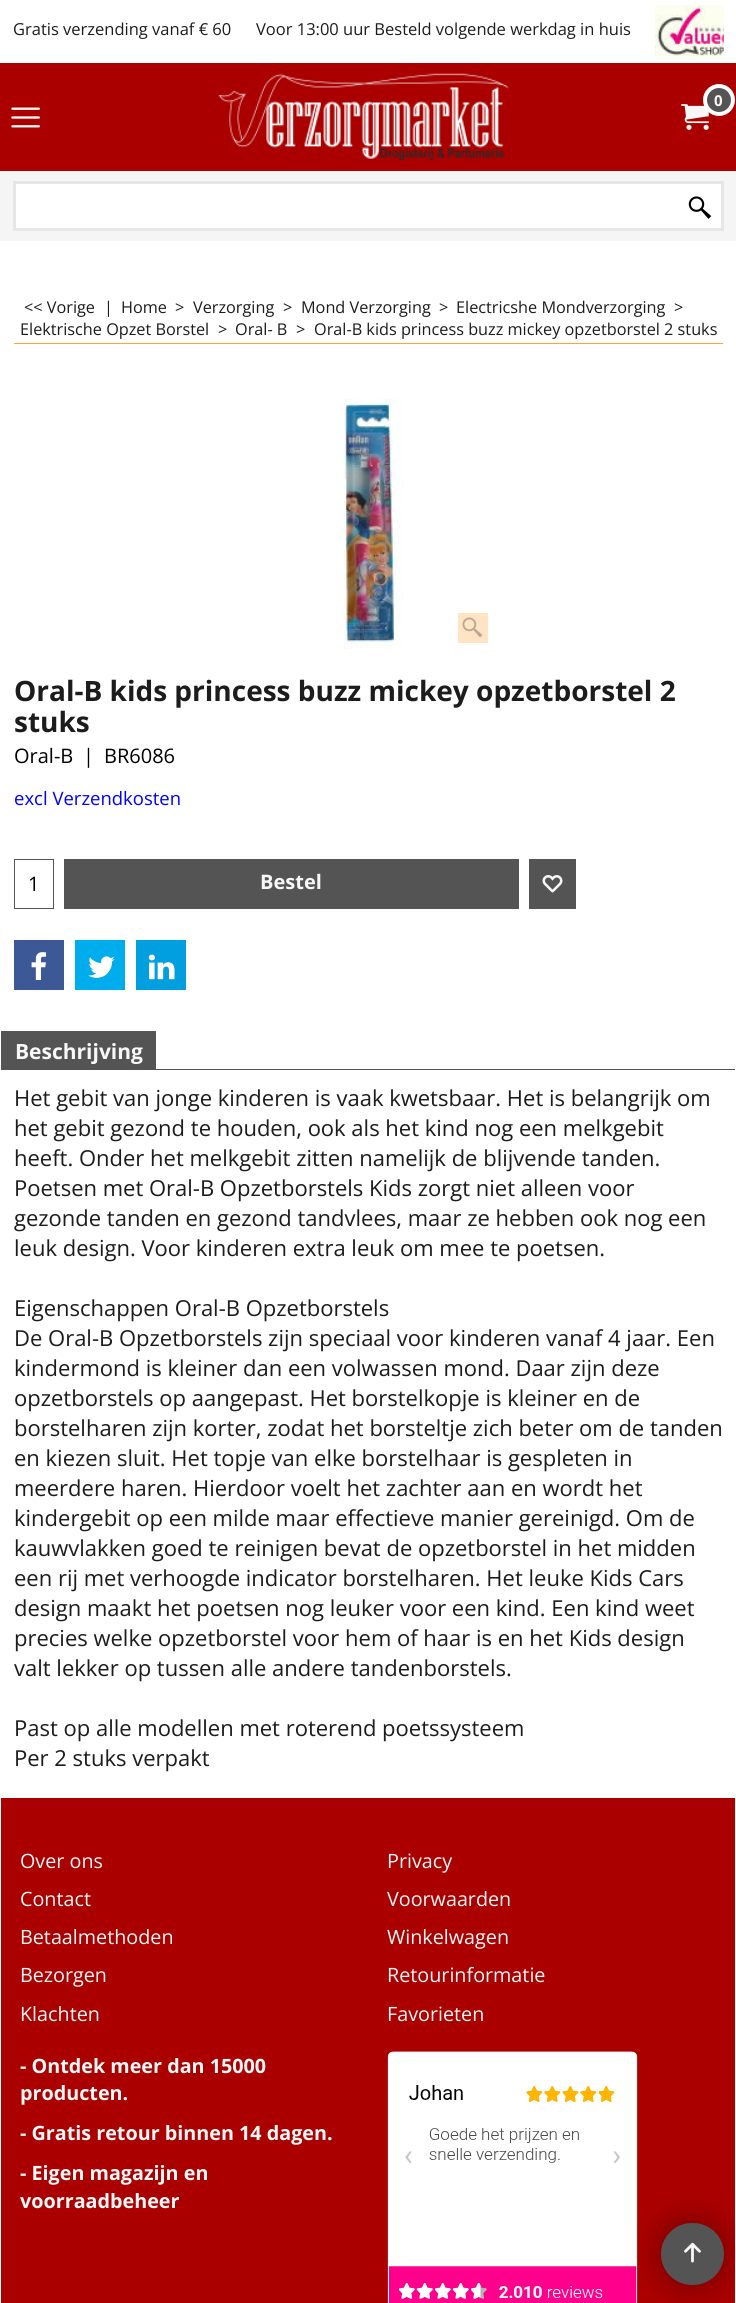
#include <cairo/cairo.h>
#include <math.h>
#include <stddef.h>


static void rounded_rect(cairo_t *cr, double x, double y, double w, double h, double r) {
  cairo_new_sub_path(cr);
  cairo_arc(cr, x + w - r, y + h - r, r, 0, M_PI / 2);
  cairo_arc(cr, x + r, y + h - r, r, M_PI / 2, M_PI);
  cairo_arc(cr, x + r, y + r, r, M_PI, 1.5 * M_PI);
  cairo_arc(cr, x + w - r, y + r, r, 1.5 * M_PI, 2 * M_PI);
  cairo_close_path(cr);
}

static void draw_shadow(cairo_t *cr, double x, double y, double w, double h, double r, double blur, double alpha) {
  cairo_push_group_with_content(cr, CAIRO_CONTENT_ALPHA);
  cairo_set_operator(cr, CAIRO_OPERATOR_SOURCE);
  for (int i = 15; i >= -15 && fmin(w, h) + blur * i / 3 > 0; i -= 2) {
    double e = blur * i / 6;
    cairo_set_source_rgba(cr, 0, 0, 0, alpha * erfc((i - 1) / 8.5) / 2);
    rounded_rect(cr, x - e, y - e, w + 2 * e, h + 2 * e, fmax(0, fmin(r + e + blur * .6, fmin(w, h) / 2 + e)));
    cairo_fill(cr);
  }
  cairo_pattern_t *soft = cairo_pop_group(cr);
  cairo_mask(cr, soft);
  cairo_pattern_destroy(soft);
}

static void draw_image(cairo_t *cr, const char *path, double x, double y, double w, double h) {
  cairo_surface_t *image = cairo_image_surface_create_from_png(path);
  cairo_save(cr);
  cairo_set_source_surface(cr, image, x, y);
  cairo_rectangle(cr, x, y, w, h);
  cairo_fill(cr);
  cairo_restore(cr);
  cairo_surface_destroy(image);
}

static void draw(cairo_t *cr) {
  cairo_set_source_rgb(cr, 1, 1, 1);
  cairo_paint(cr);
  draw_image(cr, "images/1.png", 655, 5, 69, 53);
  cairo_set_source_rgb(cr, 170 / 255.0, 0, 0);
  cairo_rectangle(cr, 0, 63, 736, 108);
  cairo_fill(cr);
  draw_image(cr, "images/2.png", 218, 73, 291, 87);
  draw_image(cr, "images/3.png", 681, 104, 28, 26);
  cairo_set_source_rgb(cr, 84 / 255.0, 84 / 255.0, 84 / 255.0);
  cairo_arc(cr, 719, 100, 14, 0, 2 * M_PI);
  cairo_fill_preserve(cr);
  cairo_set_source_rgb(cr, 1, 1, 1);
  cairo_set_line_width(cr, 4);
  cairo_stroke(cr);
  draw_image(cr, "images/4.png", 11, 107, 29, 21);
  cairo_set_source_rgb(cr, 245 / 255.0, 245 / 255.0, 246 / 255.0);
  cairo_rectangle(cr, 0, 171, 736, 70);
  cairo_fill(cr);
  cairo_set_source_rgb(cr, 1, 1, 1);
  cairo_rectangle(cr, 14.5, 182.5, 708, 47);
  cairo_fill_preserve(cr);
  cairo_set_source_rgb(cr, 230 / 255.0, 230 / 255.0, 230 / 255.0);
  cairo_set_line_width(cr, 3);
  cairo_stroke(cr);
  draw_image(cr, "images/5.png", 688, 196, 24, 23);
  cairo_set_source_rgb(cr, 1, 164 / 255.0, 57 / 255.0);
  cairo_rectangle(cr, 14, 343, 709, 1);
  cairo_fill(cr);
  draw_image(cr, "images/6.png", 343, 399, 61, 250);
  cairo_set_source_rgb(cr, 1, 228 / 255.0, 196 / 255.0);
  cairo_rectangle(cr, 458, 613, 30, 30);
  cairo_fill(cr);
  draw_image(cr, "images/7.png", 462, 617, 21, 21);
  cairo_set_source_rgb(cr, 84 / 255.0, 84 / 255.0, 84 / 255.0);
  cairo_rectangle(cr, 14, 859, 40, 50);
  cairo_fill(cr);
  cairo_set_source_rgb(cr, 1, 1, 1);
  cairo_rectangle(cr, 15, 860, 38, 48);
  cairo_fill(cr);
  cairo_set_source_rgb(cr, 84 / 255.0, 84 / 255.0, 84 / 255.0);
  cairo_rectangle(cr, 64, 859, 455, 50);
  cairo_fill(cr);
  cairo_rectangle(cr, 529, 859, 47, 50);
  cairo_fill(cr);
  draw_image(cr, "images/8.png", 542, 875, 21, 18);
  cairo_set_source_rgb(cr, 60 / 255.0, 88 / 255.0, 151 / 255.0);
  cairo_rectangle(cr, 14, 940, 50, 50);
  cairo_fill(cr);
  draw_image(cr, "images/9.png", 31, 952, 16, 28);
  cairo_set_source_rgb(cr, 0, 173 / 255.0, 236 / 255.0);
  cairo_rectangle(cr, 75, 940, 50, 50);
  cairo_fill(cr);
  draw_image(cr, "images/10.png", 88, 956, 27, 22);
  cairo_set_source_rgb(cr, 1 / 255.0, 159 / 255.0, 224 / 255.0);
  cairo_rectangle(cr, 136, 940, 50, 50);
  cairo_fill(cr);
  draw_image(cr, "images/11.png", 148, 954, 27, 26);
  cairo_set_source_rgb(cr, 84 / 255.0, 84 / 255.0, 84 / 255.0);
  cairo_rectangle(cr, 1, 1031, 155, 39);
  cairo_fill(cr);
  cairo_rectangle(cr, 156, 1069, 579, 1);
  cairo_fill(cr);
  cairo_set_source_rgb(cr, 170 / 255.0, 0, 0);
  cairo_rectangle(cr, 1, 1798, 734, 505);
  cairo_fill(cr);
  draw_image(cr, "images/12.png", 387, 2051, 251, 252);
  cairo_set_source_rgb(cr, 0, 0, 0);
  draw_shadow(cr, 654, 2215, 77, 78, 38.5, 10.5, 0.2);
  cairo_set_source_rgb(cr, 84 / 255.0, 84 / 255.0, 84 / 255.0);
  rounded_rect(cr, 661, 2223, 63, 62, 31);
  cairo_fill(cr);
  draw_image(cr, "images/13.png", 684, 2242, 17, 21);
  cairo_select_font_face(cr, "Open Sans", CAIRO_FONT_SLANT_NORMAL, CAIRO_FONT_WEIGHT_NORMAL);
  cairo_set_font_size(cr, 16.5);
  cairo_set_source_rgb(cr, 28 / 255.0, 28 / 255.0, 28 / 255.0);
  cairo_move_to(cr, 13, 35);
  cairo_show_text(cr, "Gratis verzending vanaf € 60");
  cairo_move_to(cr, 256, 35);
  cairo_show_text(cr, "Voor 13:00 uur Besteld volgende werkdag in huis");
  cairo_select_font_face(cr, "Open Sans", CAIRO_FONT_SLANT_NORMAL, CAIRO_FONT_WEIGHT_BOLD);
  cairo_set_font_size(cr, 15);
  cairo_set_source_rgb(cr, 247 / 255.0, 247 / 255.0, 247 / 255.0);
  cairo_move_to(cr, 714, 106);
  cairo_show_text(cr, "0");
  cairo_select_font_face(cr, "Open Sans", CAIRO_FONT_SLANT_NORMAL, CAIRO_FONT_WEIGHT_NORMAL);
  cairo_set_font_size(cr, 16.25);
  cairo_set_source_rgb(cr, 28 / 255.0, 28 / 255.0, 28 / 255.0);
  cairo_move_to(cr, 24, 313);
  cairo_show_text(cr, "<< Vorige");
  cairo_move_to(cr, 104, 313);
  cairo_show_text(cr, "|");
  cairo_move_to(cr, 121, 313);
  cairo_show_text(cr, "Home");
  cairo_move_to(cr, 175, 313);
  cairo_show_text(cr, ">");
  cairo_move_to(cr, 193, 313);
  cairo_show_text(cr, "Verzorging");
  cairo_move_to(cr, 283, 313);
  cairo_show_text(cr, ">");
  cairo_move_to(cr, 301, 313);
  cairo_show_text(cr, "Mond Verzorging");
  cairo_move_to(cr, 439, 313);
  cairo_show_text(cr, ">");
  cairo_move_to(cr, 456, 313);
  cairo_show_text(cr, "Electricshe Mondverzorging");
  cairo_move_to(cr, 674, 313);
  cairo_show_text(cr, ">");
  cairo_move_to(cr, 20, 335);
  cairo_show_text(cr, "Elektrische Opzet Borstel");
  cairo_move_to(cr, 218, 335);
  cairo_show_text(cr, ">");
  cairo_move_to(cr, 235, 335);
  cairo_show_text(cr, "Oral- B");
  cairo_move_to(cr, 296, 335);
  cairo_show_text(cr, ">");
  cairo_move_to(cr, 314, 335);
  cairo_show_text(cr, "Oral-B kids princess buzz mickey opzetborstel 2 stuks");
  cairo_select_font_face(cr, "Open Sans", CAIRO_FONT_SLANT_NORMAL, CAIRO_FONT_WEIGHT_BOLD);
  cairo_set_font_size(cr, 28);
  cairo_move_to(cr, 14, 701);
  cairo_show_text(cr, "Oral-B kids princess buzz mickey opzetborstel 2");
  cairo_move_to(cr, 14, 732);
  cairo_show_text(cr, "stuks");
  cairo_select_font_face(cr, "Open Sans", CAIRO_FONT_SLANT_NORMAL, CAIRO_FONT_WEIGHT_NORMAL);
  cairo_set_font_size(cr, 20);
  cairo_set_source_rgb(cr, 0, 0, 0);
  cairo_move_to(cr, 14, 763);
  cairo_show_text(cr, "Oral-B");
  cairo_move_to(cr, 83, 763);
  cairo_show_text(cr, "|");
  cairo_move_to(cr, 104, 763);
  cairo_show_text(cr, "BR6086");
  cairo_set_font_size(cr, 18.5);
  cairo_set_source_rgb(cr, 0, 0, 1);
  cairo_move_to(cr, 14, 805);
  cairo_show_text(cr, "excl Verzendkosten");
  cairo_set_font_size(cr, 20);
  cairo_set_source_rgb(cr, 0, 0, 0);
  cairo_move_to(cr, 28, 891);
  cairo_show_text(cr, "1");
  cairo_select_font_face(cr, "Open Sans", CAIRO_FONT_SLANT_NORMAL, CAIRO_FONT_WEIGHT_BOLD);
  cairo_set_source_rgb(cr, 247 / 255.0, 247 / 255.0, 247 / 255.0);
  cairo_move_to(cr, 260, 889);
  cairo_show_text(cr, "Bestel");
  cairo_set_font_size(cr, 21);
  cairo_move_to(cr, 15, 1059);
  cairo_show_text(cr, "Beschrijving");
  cairo_select_font_face(cr, "Open Sans", CAIRO_FONT_SLANT_NORMAL, CAIRO_FONT_WEIGHT_NORMAL);
  cairo_set_font_size(cr, 22);
  cairo_set_source_rgb(cr, 28 / 255.0, 28 / 255.0, 28 / 255.0);
  cairo_move_to(cr, 14, 1106);
  cairo_show_text(cr, "Het gebit van jonge kinderen is vaak kwetsbaar. Het is belangrijk om");
  cairo_move_to(cr, 14, 1136);
  cairo_show_text(cr, "het gebit gezond te houden, ook als het kind nog een melkgebit");
  cairo_move_to(cr, 14, 1166);
  cairo_show_text(cr, "heeft. Onder het melkgebit zitten namelijk de blijvende tanden.");
  cairo_move_to(cr, 14, 1196);
  cairo_show_text(cr, "Poetsen met Oral-B Opzetborstels Kids zorgt niet alleen voor");
  cairo_move_to(cr, 14, 1226);
  cairo_show_text(cr, "gezonde tanden en gezond tandvlees, maar ze hebben ook nog een");
  cairo_move_to(cr, 14, 1256);
  cairo_show_text(cr, "leuk design. Voor kinderen extra leuk om mee te poetsen.");
  cairo_move_to(cr, 14, 1316);
  cairo_show_text(cr, "Eigenschappen Oral-B Opzetborstels");
  cairo_move_to(cr, 14, 1346);
  cairo_show_text(cr, "De Oral-B Opzetborstels zijn speciaal voor kinderen vanaf 4 jaar. Een");
  cairo_move_to(cr, 14, 1376);
  cairo_show_text(cr, "kindermond is kleiner dan een volwassen mond. Daar zijn deze");
  cairo_move_to(cr, 14, 1406);
  cairo_show_text(cr, "opzetborstels op aangepast. Het borstelkopje is kleiner en de");
  cairo_move_to(cr, 14, 1436);
  cairo_show_text(cr, "borstelharen zijn korter, zodat het borsteltje zich beter om de tanden");
  cairo_move_to(cr, 14, 1466);
  cairo_show_text(cr, "en kiezen sluit. Het topje van elke borstelhaar is gespleten in");
  cairo_move_to(cr, 14, 1496);
  cairo_show_text(cr, "meerdere haren. Hierdoor voelt het zachter aan en wordt het");
  cairo_move_to(cr, 14, 1526);
  cairo_show_text(cr, "kindergebit op een milde maar effectieve manier gereinigd. Om de");
  cairo_move_to(cr, 14, 1556);
  cairo_show_text(cr, "kauwvlakken goed te reinigen bevat de opzetborstel in het midden");
  cairo_move_to(cr, 14, 1586);
  cairo_show_text(cr, "een rij met verhoogde indicator borstelharen. Het leuke Kids Cars");
  cairo_move_to(cr, 14, 1616);
  cairo_show_text(cr, "design maakt het poetsen nog leuker voor een kind. Een kind weet");
  cairo_move_to(cr, 14, 1646);
  cairo_show_text(cr, "precies welke opzetborstel voor hem of haar is en het Kids design");
  cairo_move_to(cr, 14, 1676);
  cairo_show_text(cr, "valt lekker op tussen alle andere tandenborstels.");
  cairo_move_to(cr, 14, 1736);
  cairo_show_text(cr, "Past op alle modellen met roterend poetssysteem");
  cairo_move_to(cr, 14, 1766);
  cairo_show_text(cr, "Per 2 stuks verpakt");
  cairo_set_font_size(cr, 19.75);
  cairo_set_source_rgb(cr, 247 / 255.0, 247 / 255.0, 247 / 255.0);
  cairo_move_to(cr, 20, 1868);
  cairo_show_text(cr, "Over ons");
  cairo_move_to(cr, 20, 1906);
  cairo_show_text(cr, "Contact");
  cairo_move_to(cr, 20, 1944);
  cairo_show_text(cr, "Betaalmethoden");
  cairo_move_to(cr, 20, 1982);
  cairo_show_text(cr, "Bezorgen");
  cairo_move_to(cr, 20, 2021);
  cairo_show_text(cr, "Klachten");
  cairo_move_to(cr, 387, 1868);
  cairo_show_text(cr, "Privacy");
  cairo_move_to(cr, 387, 1906);
  cairo_show_text(cr, "Voorwaarden");
  cairo_move_to(cr, 387, 1944);
  cairo_show_text(cr, "Winkelwagen");
  cairo_move_to(cr, 387, 1982);
  cairo_show_text(cr, "Retourinformatie");
  cairo_move_to(cr, 387, 2021);
  cairo_show_text(cr, "Favorieten");
  cairo_select_font_face(cr, "Open Sans", CAIRO_FONT_SLANT_NORMAL, CAIRO_FONT_WEIGHT_BOLD);
  cairo_move_to(cr, 20, 2073);
  cairo_show_text(cr, "- Ontdek meer dan 15000");
  cairo_move_to(cr, 20, 2100);
  cairo_show_text(cr, "producten.");
  cairo_move_to(cr, 20, 2140);
  cairo_show_text(cr, "- Gratis retour binnen 14 dagen.");
  cairo_move_to(cr, 20, 2180);
  cairo_show_text(cr, "- Eigen magazijn en");
  cairo_move_to(cr, 20, 2208);
  cairo_show_text(cr, "voorraadbeheer");
}

int main(void) {
  cairo_surface_t *surface = cairo_image_surface_create(CAIRO_FORMAT_RGB24, 736, 2303);
  cairo_t *cr = cairo_create(surface);
  cairo_font_options_t *options = cairo_font_options_create();
  cairo_font_options_set_hint_metrics(options, CAIRO_HINT_METRICS_OFF);
  cairo_font_options_set_hint_style(options, CAIRO_HINT_STYLE_NONE);
  cairo_set_font_options(cr, options);
  cairo_set_miter_limit(cr, 4);
  draw(cr);
  cairo_surface_write_to_png(surface, "out.png");
  cairo_font_options_destroy(options);
  cairo_destroy(cr);
  cairo_surface_destroy(surface);
  return 0;
}
